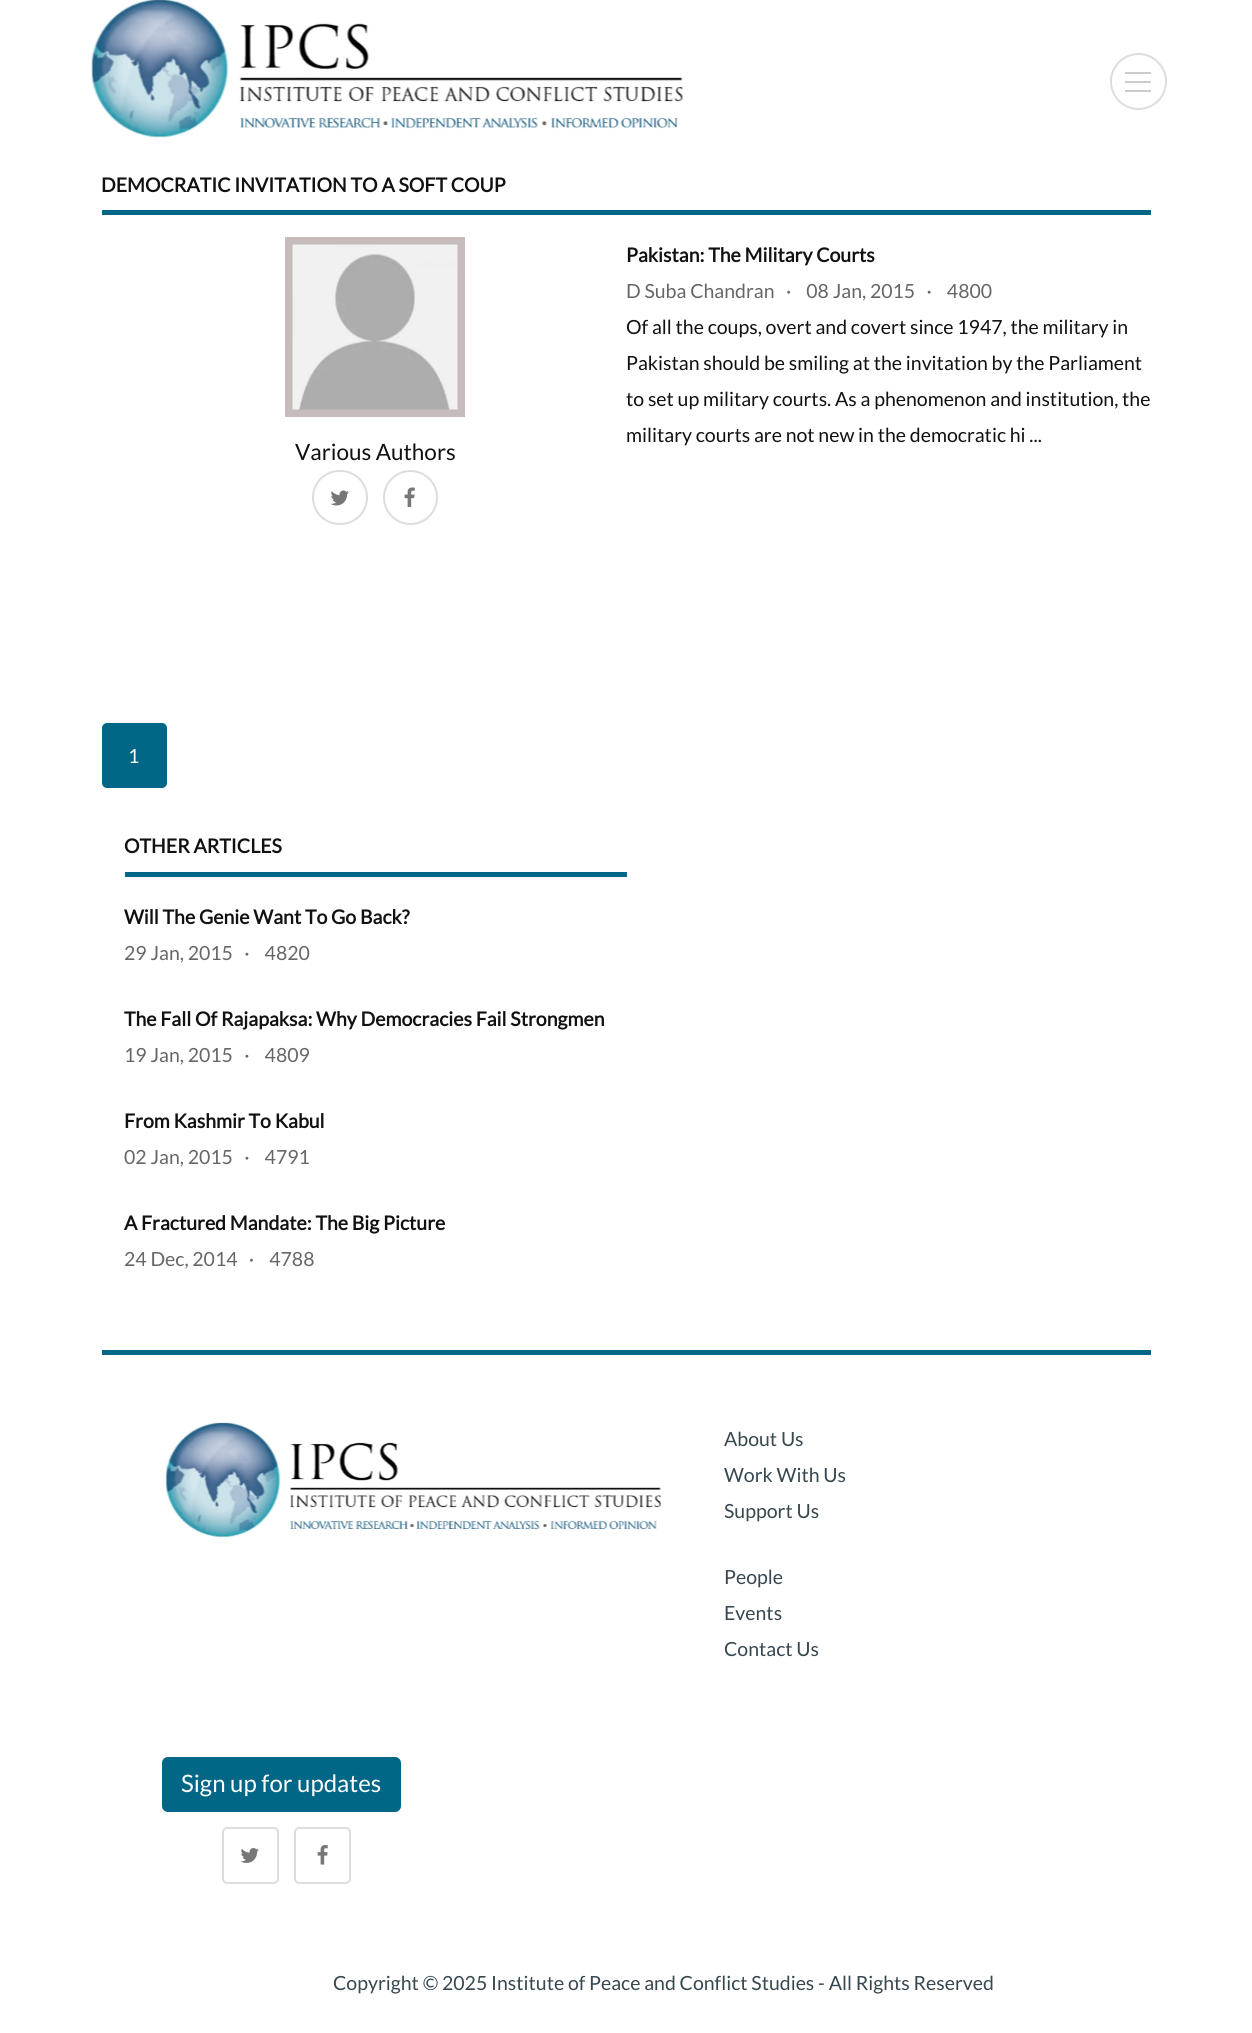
#include <cairo/cairo.h>
#include <math.h>
#include <stddef.h>


static void rounded_rect(cairo_t *cr, double x, double y, double w, double h, double r) {
  cairo_new_sub_path(cr);
  cairo_arc(cr, x + w - r, y + h - r, r, 0, M_PI / 2);
  cairo_arc(cr, x + r, y + h - r, r, M_PI / 2, M_PI);
  cairo_arc(cr, x + r, y + r, r, M_PI, 1.5 * M_PI);
  cairo_arc(cr, x + w - r, y + r, r, 1.5 * M_PI, 2 * M_PI);
  cairo_close_path(cr);
}

static void draw_image(cairo_t *cr, const char *path, double x, double y, double w, double h) {
  cairo_surface_t *image = cairo_image_surface_create_from_png(path);
  cairo_save(cr);
  cairo_set_source_surface(cr, image, x, y);
  cairo_rectangle(cr, x, y, w, h);
  cairo_fill(cr);
  cairo_restore(cr);
  cairo_surface_destroy(image);
}

static void draw(cairo_t *cr) {
  cairo_set_source_rgb(cr, 1, 1, 1);
  cairo_paint(cr);
  draw_image(cr, "images/1.png", 91, 0, 592, 138);
  cairo_arc(cr, 1138.5, 81.5, 27.5, 0, 2 * M_PI);
  cairo_set_source_rgb(cr, 221 / 255.0, 221 / 255.0, 221 / 255.0);
  cairo_stroke(cr);
  cairo_set_source_rgb(cr, 204 / 255.0, 204 / 255.0, 204 / 255.0);
  cairo_rectangle(cr, 1125, 81, 26, 2);
  cairo_fill(cr);
  cairo_rectangle(cr, 1125, 72, 26, 2);
  cairo_fill(cr);
  cairo_rectangle(cr, 1125, 90, 26, 2);
  cairo_fill(cr);
  cairo_set_source_rgb(cr, 2 / 255.0, 102 / 255.0, 135 / 255.0);
  cairo_rectangle(cr, 102, 210, 1049, 5);
  cairo_fill(cr);
  rounded_rect(cr, 103, 724, 63, 63, 4);
  cairo_fill_preserve(cr);
  cairo_stroke(cr);
  cairo_rectangle(cr, 289, 241, 172, 172);
  cairo_set_source_rgb(cr, 198 / 255.0, 188 / 255.0, 188 / 255.0);
  cairo_set_line_width(cr, 8);
  cairo_stroke(cr);
  draw_image(cr, "images/2.png", 292, 244, 166, 166);
  rounded_rect(cr, 313, 471, 54, 53, 26.5);
  cairo_set_source_rgb(cr, 221 / 255.0, 221 / 255.0, 221 / 255.0);
  cairo_set_line_width(cr, 2);
  cairo_stroke(cr);
  draw_image(cr, "images/3.png", 330, 490, 19, 16);
  cairo_arc(cr, 410.5, 497.5, 26.5, 0, 2 * M_PI);
  cairo_stroke(cr);
  draw_image(cr, "images/4.png", 404, 487, 11, 20);
  cairo_set_source_rgb(cr, 2 / 255.0, 102 / 255.0, 135 / 255.0);
  cairo_rectangle(cr, 125, 872, 502, 5);
  cairo_fill(cr);
  cairo_rectangle(cr, 102, 1350, 1049, 5);
  cairo_fill(cr);
  draw_image(cr, "images/5.png", 165, 1422, 497, 116);
  rounded_rect(cr, 162, 1757, 239, 55, 6);
  cairo_fill(cr);
  rounded_rect(cr, 223, 1828, 55, 55, 4);
  cairo_set_source_rgb(cr, 221 / 255.0, 221 / 255.0, 221 / 255.0);
  cairo_stroke(cr);
  draw_image(cr, "images/6.png", 240, 1848, 19, 15);
  rounded_rect(cr, 295, 1828, 55, 55, 4);
  cairo_stroke(cr);
  draw_image(cr, "images/7.png", 317, 1845, 11, 20);
  cairo_select_font_face(cr, "Lato", CAIRO_FONT_SLANT_NORMAL, CAIRO_FONT_WEIGHT_BOLD);
  cairo_set_font_size(cr, 19.5);
  cairo_set_source_rgb(cr, 17 / 255.0, 17 / 255.0, 17 / 255.0);
  cairo_move_to(cr, 101, 192);
  cairo_show_text(cr, "DEMOCRATIC INVITATION TO A SOFT COUP");
  cairo_move_to(cr, 626, 262);
  cairo_show_text(cr, "Pakistan: The Military Courts");
  cairo_select_font_face(cr, "Lato", CAIRO_FONT_SLANT_NORMAL, CAIRO_FONT_WEIGHT_NORMAL);
  cairo_set_source_rgb(cr, 102 / 255.0, 102 / 255.0, 102 / 255.0);
  cairo_move_to(cr, 626, 298);
  cairo_show_text(cr, "D Suba Chandran   ·    08 Jan, 2015   ·    4800");
  cairo_set_source_rgb(cr, 17 / 255.0, 17 / 255.0, 17 / 255.0);
  cairo_move_to(cr, 626, 334);
  cairo_show_text(cr, "Of all the coups, overt and covert since 1947, the military in");
  cairo_move_to(cr, 626, 370);
  cairo_show_text(cr, "Pakistan should be smiling at the invitation by the Parliament");
  cairo_move_to(cr, 626, 406);
  cairo_show_text(cr, "to set up military courts. As a phenomenon and institution, the");
  cairo_move_to(cr, 626, 442);
  cairo_show_text(cr, "military courts are not new in the democratic hi ...");
  cairo_set_source_rgb(cr, 1, 1, 1);
  cairo_move_to(cr, 128, 763);
  cairo_show_text(cr, "1");
  cairo_set_font_size(cr, 22.5);
  cairo_set_source_rgb(cr, 17 / 255.0, 17 / 255.0, 17 / 255.0);
  cairo_move_to(cr, 295, 460);
  cairo_show_text(cr, "Various Authors");
  cairo_select_font_face(cr, "Lato", CAIRO_FONT_SLANT_NORMAL, CAIRO_FONT_WEIGHT_BOLD);
  cairo_set_font_size(cr, 19.5);
  cairo_move_to(cr, 124, 853);
  cairo_show_text(cr, "OTHER ARTICLES");
  cairo_move_to(cr, 124, 924);
  cairo_show_text(cr, "Will The Genie Want To Go Back?");
  cairo_select_font_face(cr, "Lato", CAIRO_FONT_SLANT_NORMAL, CAIRO_FONT_WEIGHT_NORMAL);
  cairo_set_source_rgb(cr, 102 / 255.0, 102 / 255.0, 102 / 255.0);
  cairo_move_to(cr, 124, 960);
  cairo_show_text(cr, "29 Jan, 2015   ·    4820");
  cairo_select_font_face(cr, "Lato", CAIRO_FONT_SLANT_NORMAL, CAIRO_FONT_WEIGHT_BOLD);
  cairo_set_source_rgb(cr, 17 / 255.0, 17 / 255.0, 17 / 255.0);
  cairo_move_to(cr, 124, 1026);
  cairo_show_text(cr, "The Fall Of Rajapaksa: Why Democracies Fail Strongmen");
  cairo_select_font_face(cr, "Lato", CAIRO_FONT_SLANT_NORMAL, CAIRO_FONT_WEIGHT_NORMAL);
  cairo_set_source_rgb(cr, 102 / 255.0, 102 / 255.0, 102 / 255.0);
  cairo_move_to(cr, 124, 1062);
  cairo_show_text(cr, "19 Jan, 2015   ·    4809");
  cairo_select_font_face(cr, "Lato", CAIRO_FONT_SLANT_NORMAL, CAIRO_FONT_WEIGHT_BOLD);
  cairo_set_source_rgb(cr, 17 / 255.0, 17 / 255.0, 17 / 255.0);
  cairo_move_to(cr, 124, 1128);
  cairo_show_text(cr, "From Kashmir To Kabul");
  cairo_select_font_face(cr, "Lato", CAIRO_FONT_SLANT_NORMAL, CAIRO_FONT_WEIGHT_NORMAL);
  cairo_set_source_rgb(cr, 102 / 255.0, 102 / 255.0, 102 / 255.0);
  cairo_move_to(cr, 124, 1164);
  cairo_show_text(cr, "02 Jan, 2015   ·    4791");
  cairo_select_font_face(cr, "Lato", CAIRO_FONT_SLANT_NORMAL, CAIRO_FONT_WEIGHT_BOLD);
  cairo_set_source_rgb(cr, 17 / 255.0, 17 / 255.0, 17 / 255.0);
  cairo_move_to(cr, 124, 1230);
  cairo_show_text(cr, "A Fractured Mandate: The Big Picture");
  cairo_select_font_face(cr, "Lato", CAIRO_FONT_SLANT_NORMAL, CAIRO_FONT_WEIGHT_NORMAL);
  cairo_set_source_rgb(cr, 102 / 255.0, 102 / 255.0, 102 / 255.0);
  cairo_move_to(cr, 124, 1266);
  cairo_show_text(cr, "24 Dec, 2014   ·    4788");
  cairo_set_source_rgb(cr, 55 / 255.0, 71 / 255.0, 79 / 255.0);
  cairo_move_to(cr, 724, 1446);
  cairo_show_text(cr, "About Us");
  cairo_move_to(cr, 724, 1482);
  cairo_show_text(cr, "Work With Us");
  cairo_move_to(cr, 724, 1518);
  cairo_show_text(cr, "Support Us");
  cairo_move_to(cr, 724, 1584);
  cairo_show_text(cr, "People");
  cairo_move_to(cr, 724, 1620);
  cairo_show_text(cr, "Events");
  cairo_move_to(cr, 724, 1656);
  cairo_show_text(cr, "Contact Us");
  cairo_set_font_size(cr, 24);
  cairo_set_source_rgb(cr, 1, 1, 1);
  cairo_move_to(cr, 181, 1792);
  cairo_show_text(cr, "Sign up for updates");
  cairo_set_font_size(cr, 19.5);
  cairo_set_source_rgb(cr, 55 / 255.0, 71 / 255.0, 79 / 255.0);
  cairo_move_to(cr, 333, 1990);
  cairo_show_text(cr, "Copyright © 2025 Institute of Peace and Conflict Studies - All Rights Reserved");
}

int main(void) {
  cairo_surface_t *surface = cairo_image_surface_create(CAIRO_FORMAT_RGB24, 1252, 2033);
  cairo_t *cr = cairo_create(surface);
  cairo_font_options_t *options = cairo_font_options_create();
  cairo_font_options_set_hint_metrics(options, CAIRO_HINT_METRICS_OFF);
  cairo_font_options_set_hint_style(options, CAIRO_HINT_STYLE_NONE);
  cairo_set_font_options(cr, options);
  cairo_set_miter_limit(cr, 4);
  draw(cr);
  cairo_surface_write_to_png(surface, "out.png");
  cairo_font_options_destroy(options);
  cairo_destroy(cr);
  cairo_surface_destroy(surface);
  return 0;
}
